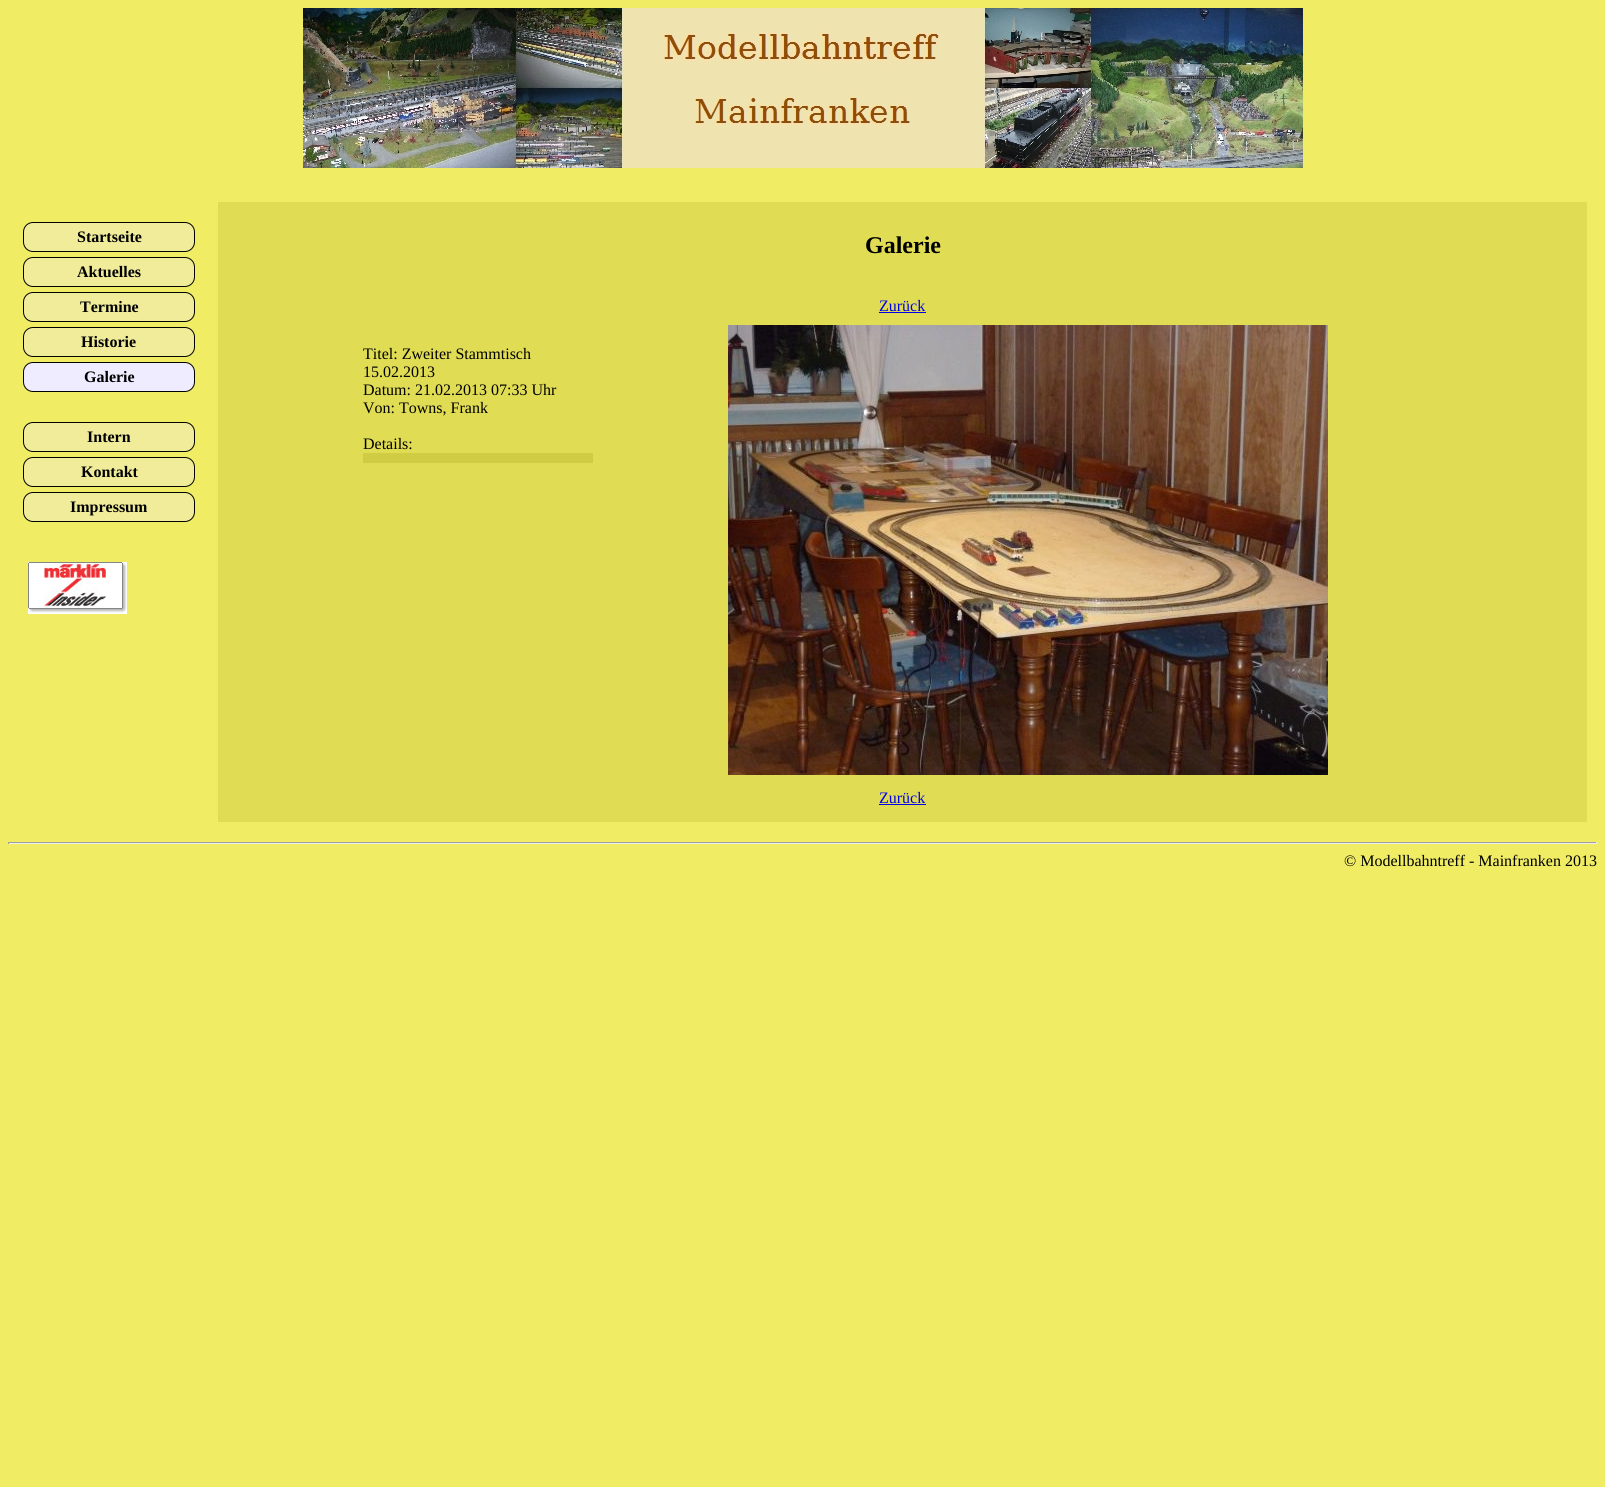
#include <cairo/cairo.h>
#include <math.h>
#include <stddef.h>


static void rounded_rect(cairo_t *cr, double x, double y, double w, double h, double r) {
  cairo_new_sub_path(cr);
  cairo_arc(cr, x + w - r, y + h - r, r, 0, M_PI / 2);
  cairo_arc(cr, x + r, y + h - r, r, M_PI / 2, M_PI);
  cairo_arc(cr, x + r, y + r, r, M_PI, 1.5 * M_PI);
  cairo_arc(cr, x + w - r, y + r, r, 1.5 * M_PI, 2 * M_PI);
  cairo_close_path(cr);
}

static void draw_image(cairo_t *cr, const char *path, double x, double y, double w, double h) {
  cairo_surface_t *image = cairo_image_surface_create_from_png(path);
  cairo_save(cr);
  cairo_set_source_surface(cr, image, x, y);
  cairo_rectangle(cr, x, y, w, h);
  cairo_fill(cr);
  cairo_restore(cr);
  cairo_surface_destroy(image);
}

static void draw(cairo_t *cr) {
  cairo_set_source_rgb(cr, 240 / 255.0, 236 / 255.0, 100 / 255.0);
  cairo_paint(cr);
  draw_image(cr, "images/1.png", 303, 8, 1000, 160);
  cairo_set_source_rgb(cr, 240 / 255.0, 236 / 255.0, 153 / 255.0);
  rounded_rect(cr, 23.5, 222.5, 171, 29, 9.5);
  cairo_fill_preserve(cr);
  cairo_set_source_rgb(cr, 0, 0, 0);
  cairo_set_line_width(cr, 1);
  cairo_stroke(cr);
  cairo_set_source_rgb(cr, 240 / 255.0, 236 / 255.0, 153 / 255.0);
  rounded_rect(cr, 23.5, 257.5, 171, 29, 9.5);
  cairo_fill_preserve(cr);
  cairo_set_source_rgb(cr, 0, 0, 0);
  cairo_stroke(cr);
  cairo_set_source_rgb(cr, 240 / 255.0, 236 / 255.0, 153 / 255.0);
  rounded_rect(cr, 23.5, 292.5, 171, 29, 9.5);
  cairo_fill_preserve(cr);
  cairo_set_source_rgb(cr, 0, 0, 0);
  cairo_stroke(cr);
  cairo_set_source_rgb(cr, 240 / 255.0, 236 / 255.0, 153 / 255.0);
  rounded_rect(cr, 23.5, 327.5, 171, 29, 9.5);
  cairo_fill_preserve(cr);
  cairo_set_source_rgb(cr, 0, 0, 0);
  cairo_stroke(cr);
  cairo_set_source_rgb(cr, 240 / 255.0, 236 / 255.0, 1);
  rounded_rect(cr, 23.5, 362.5, 171, 29, 9.5);
  cairo_fill_preserve(cr);
  cairo_set_source_rgb(cr, 0, 0, 0);
  cairo_stroke(cr);
  cairo_set_source_rgb(cr, 240 / 255.0, 236 / 255.0, 153 / 255.0);
  rounded_rect(cr, 23.5, 422.5, 171, 29, 9.5);
  cairo_fill_preserve(cr);
  cairo_set_source_rgb(cr, 0, 0, 0);
  cairo_stroke(cr);
  cairo_set_source_rgb(cr, 240 / 255.0, 236 / 255.0, 153 / 255.0);
  rounded_rect(cr, 23.5, 457.5, 171, 29, 9.5);
  cairo_fill_preserve(cr);
  cairo_set_source_rgb(cr, 0, 0, 0);
  cairo_stroke(cr);
  cairo_set_source_rgb(cr, 240 / 255.0, 236 / 255.0, 153 / 255.0);
  rounded_rect(cr, 23.5, 492.5, 171, 29, 9.5);
  cairo_fill_preserve(cr);
  cairo_set_source_rgb(cr, 0, 0, 0);
  cairo_stroke(cr);
  draw_image(cr, "images/2.png", 28, 562, 99, 52);
  cairo_set_source_rgb(cr, 224 / 255.0, 220 / 255.0, 84 / 255.0);
  cairo_rectangle(cr, 218, 202, 1369, 620);
  cairo_fill(cr);
  cairo_set_source_rgb(cr, 0, 0, 238 / 255.0);
  cairo_rectangle(cr, 879, 312, 47, 1);
  cairo_fill(cr);
  cairo_set_source_rgb(cr, 208 / 255.0, 204 / 255.0, 68 / 255.0);
  cairo_rectangle(cr, 363, 453, 230, 10);
  cairo_fill(cr);
  draw_image(cr, "images/3.png", 728, 325, 600, 450);
  cairo_set_source_rgb(cr, 0, 0, 238 / 255.0);
  cairo_rectangle(cr, 879, 804, 47, 1);
  cairo_fill(cr);
  cairo_set_source_rgb(cr, 159 / 255.0, 159 / 255.0, 159 / 255.0);
  cairo_rectangle(cr, 8, 842, 1589, 1);
  cairo_fill(cr);
  cairo_set_source_rgb(cr, 238 / 255.0, 238 / 255.0, 238 / 255.0);
  cairo_rectangle(cr, 1596, 842, 1, 2);
  cairo_fill(cr);
  cairo_rectangle(cr, 8, 843, 1589, 1);
  cairo_fill(cr);
  cairo_set_source_rgb(cr, 159 / 255.0, 159 / 255.0, 159 / 255.0);
  cairo_rectangle(cr, 8, 842, 1, 2);
  cairo_fill(cr);
  cairo_select_font_face(cr, "Liberation Serif", CAIRO_FONT_SLANT_NORMAL, CAIRO_FONT_WEIGHT_BOLD);
  cairo_set_font_size(cr, 16);
  cairo_set_source_rgb(cr, 0, 0, 0);
  cairo_move_to(cr, 77, 242);
  cairo_show_text(cr, "Startseite");
  cairo_move_to(cr, 77, 277);
  cairo_show_text(cr, "Aktuelles");
  cairo_move_to(cr, 80, 312);
  cairo_show_text(cr, "Termine");
  cairo_move_to(cr, 81, 347);
  cairo_show_text(cr, "Historie");
  cairo_move_to(cr, 84, 382);
  cairo_show_text(cr, "Galerie");
  cairo_move_to(cr, 87, 442);
  cairo_show_text(cr, "Intern");
  cairo_move_to(cr, 81, 477);
  cairo_show_text(cr, "Kontakt");
  cairo_move_to(cr, 70, 512);
  cairo_show_text(cr, "Impressum");
  cairo_set_font_size(cr, 24);
  cairo_move_to(cr, 865, 253);
  cairo_show_text(cr, "Galerie");
  cairo_select_font_face(cr, "Liberation Serif", CAIRO_FONT_SLANT_NORMAL, CAIRO_FONT_WEIGHT_NORMAL);
  cairo_set_font_size(cr, 16);
  cairo_set_source_rgb(cr, 0, 0, 238 / 255.0);
  cairo_move_to(cr, 879, 311);
  cairo_show_text(cr, "Zurück");
  cairo_set_source_rgb(cr, 0, 0, 0);
  cairo_move_to(cr, 363, 359);
  cairo_show_text(cr, "Titel: Zweiter Stammtisch");
  cairo_move_to(cr, 363, 377);
  cairo_show_text(cr, "15.02.2013");
  cairo_move_to(cr, 363, 395);
  cairo_show_text(cr, "Datum: 21.02.2013 07:33 Uhr");
  cairo_move_to(cr, 363, 413);
  cairo_show_text(cr, "Von: Towns, Frank");
  cairo_move_to(cr, 363, 449);
  cairo_show_text(cr, "Details:");
  cairo_set_source_rgb(cr, 0, 0, 238 / 255.0);
  cairo_move_to(cr, 879, 803);
  cairo_show_text(cr, "Zurück");
  cairo_set_source_rgb(cr, 0, 0, 0);
  cairo_move_to(cr, 1344, 866);
  cairo_show_text(cr, "© Modellbahntreff - Mainfranken 2013");
}

int main(void) {
  cairo_surface_t *surface = cairo_image_surface_create(CAIRO_FORMAT_RGB24, 1605, 1487);
  cairo_t *cr = cairo_create(surface);
  cairo_font_options_t *options = cairo_font_options_create();
  cairo_font_options_set_hint_metrics(options, CAIRO_HINT_METRICS_OFF);
  cairo_font_options_set_hint_style(options, CAIRO_HINT_STYLE_NONE);
  cairo_set_font_options(cr, options);
  cairo_set_miter_limit(cr, 4);
  draw(cr);
  cairo_surface_write_to_png(surface, "out.png");
  cairo_font_options_destroy(options);
  cairo_destroy(cr);
  cairo_surface_destroy(surface);
  return 0;
}
